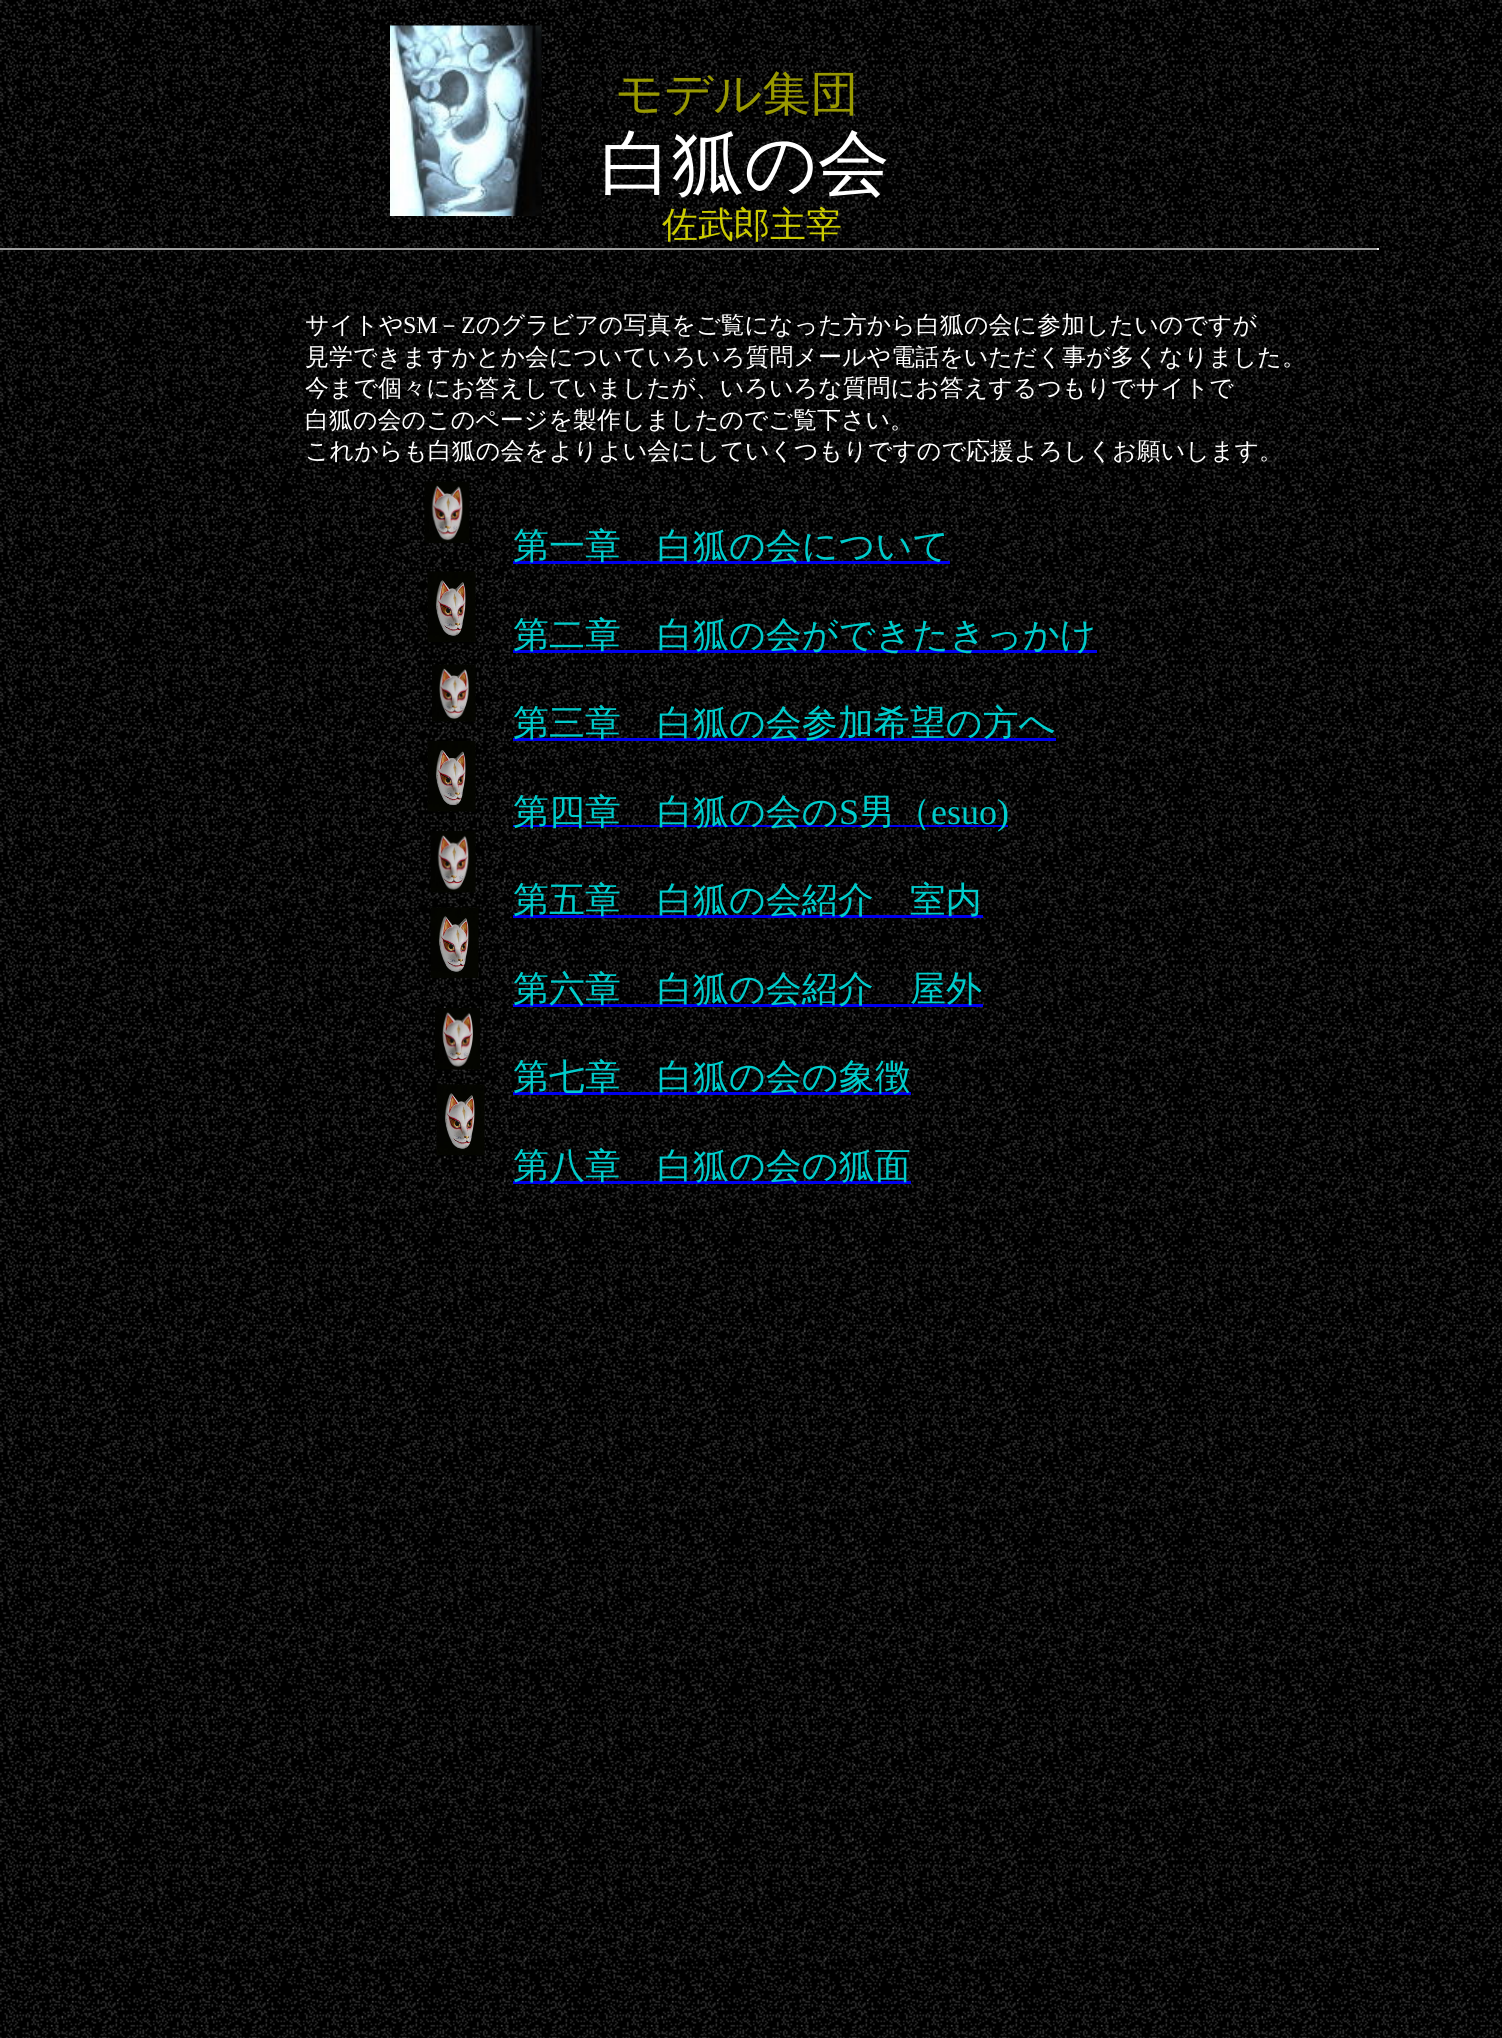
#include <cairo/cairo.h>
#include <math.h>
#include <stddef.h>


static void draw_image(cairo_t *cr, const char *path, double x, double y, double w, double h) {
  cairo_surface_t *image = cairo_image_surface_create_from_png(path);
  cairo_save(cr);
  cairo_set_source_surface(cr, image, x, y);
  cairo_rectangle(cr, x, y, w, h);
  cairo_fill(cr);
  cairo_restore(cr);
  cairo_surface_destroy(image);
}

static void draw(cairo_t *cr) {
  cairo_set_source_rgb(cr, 1, 1, 1);
  cairo_paint(cr);
  draw_image(cr, "images/1.png", 0, 0, 1502, 2038);
  draw_image(cr, "images/2.png", 390, 25, 152, 191);
  cairo_set_source_rgb(cr, 159 / 255.0, 159 / 255.0, 159 / 255.0);
  cairo_rectangle(cr, 0, 248, 1379, 2);
  cairo_fill(cr);
  cairo_set_source_rgb(cr, 238 / 255.0, 238 / 255.0, 238 / 255.0);
  cairo_rectangle(cr, 1377, 248, 2, 2);
  cairo_fill(cr);
  draw_image(cr, "images/3.png", 424, 481, 46, 62);
  draw_image(cr, "images/4.png", 427, 571, 49, 71);
  cairo_set_source_rgb(cr, 0, 0, 238 / 255.0);
  cairo_rectangle(cr, 513, 561, 437, 3);
  cairo_fill(cr);
  cairo_rectangle(cr, 513, 650, 584, 3);
  cairo_fill(cr);
  cairo_rectangle(cr, 513, 738, 543, 3);
  cairo_fill(cr);
  cairo_rectangle(cr, 513, 825, 495, 2);
  cairo_fill(cr);
  cairo_rectangle(cr, 513, 915, 470, 3);
  cairo_fill(cr);
  cairo_rectangle(cr, 513, 1004, 470, 3);
  cairo_fill(cr);
  cairo_rectangle(cr, 513, 1092, 398, 3);
  cairo_fill(cr);
  cairo_rectangle(cr, 513, 1181, 398, 3);
  cairo_fill(cr);
  draw_image(cr, "images/5.png", 432, 664, 44, 58);
  draw_image(cr, "images/6.png", 427, 741, 49, 71);
  draw_image(cr, "images/7.png", 430, 831, 46, 62);
  draw_image(cr, "images/8.png", 430, 907, 49, 71);
  draw_image(cr, "images/9.png", 435, 1008, 45, 62);
  draw_image(cr, "images/10.png", 436, 1084, 49, 71);
  cairo_select_font_face(cr, "WenQuanYi Zen Hei Medium", CAIRO_FONT_SLANT_NORMAL, CAIRO_FONT_WEIGHT_NORMAL);
  cairo_set_font_size(cr, 48);
  cairo_set_source_rgb(cr, 153 / 255.0, 153 / 255.0, 0);
  cairo_move_to(cr, 615, 110);
  cairo_show_text(cr, "モデル集団");
  cairo_set_font_size(cr, 72);
  cairo_set_source_rgb(cr, 1, 1, 1);
  cairo_move_to(cr, 600, 188);
  cairo_show_text(cr, "白狐の会");
  cairo_set_font_size(cr, 36);
  cairo_set_source_rgb(cr, 204 / 255.0, 204 / 255.0, 0);
  cairo_move_to(cr, 662, 237);
  cairo_show_text(cr, "佐武郎主宰");
  cairo_set_font_size(cr, 24);
  cairo_set_source_rgb(cr, 1, 1, 1);
  cairo_move_to(cr, 305, 333);
  cairo_show_text(cr, "サイトや");
  cairo_select_font_face(cr, "Liberation Serif", CAIRO_FONT_SLANT_NORMAL, CAIRO_FONT_WEIGHT_NORMAL);
  cairo_move_to(cr, 403, 333);
  cairo_show_text(cr, "SM");
  cairo_select_font_face(cr, "WenQuanYi Zen Hei Medium", CAIRO_FONT_SLANT_NORMAL, CAIRO_FONT_WEIGHT_NORMAL);
  cairo_move_to(cr, 437, 333);
  cairo_show_text(cr, "－");
  cairo_select_font_face(cr, "Liberation Serif", CAIRO_FONT_SLANT_NORMAL, CAIRO_FONT_WEIGHT_NORMAL);
  cairo_move_to(cr, 461, 333);
  cairo_show_text(cr, "Z");
  cairo_select_font_face(cr, "WenQuanYi Zen Hei Medium", CAIRO_FONT_SLANT_NORMAL, CAIRO_FONT_WEIGHT_NORMAL);
  cairo_move_to(cr, 476, 333);
  cairo_show_text(cr, "のグラビアの写真をご覧になった方から白狐の会に参加したいのですが");
  cairo_move_to(cr, 305, 365);
  cairo_show_text(cr, "見学できますかとか会についていろいろ質問メールや電話をいただく事が多くなりました。");
  cairo_move_to(cr, 305, 396);
  cairo_show_text(cr, "今まで個々にお答えしていましたが、いろいろな質問にお答えするつもりでサイトで");
  cairo_move_to(cr, 305, 428);
  cairo_show_text(cr, "白狐の会のこのページを製作しましたのでご覧下さい。");
  cairo_move_to(cr, 305, 459);
  cairo_show_text(cr, "これからも白狐の会をよりよい会にしていくつもりですので応援よろしくお願いします。");
  cairo_set_font_size(cr, 36);
  cairo_set_source_rgb(cr, 0, 204 / 255.0, 204 / 255.0);
  cairo_move_to(cr, 513, 558);
  cairo_show_text(cr, "第一章　白狐の会について");
  cairo_move_to(cr, 513, 647);
  cairo_show_text(cr, "第二章　白狐の会ができたきっかけ");
  cairo_move_to(cr, 513, 735);
  cairo_show_text(cr, "第三章　白狐の会参加希望の方へ");
  cairo_move_to(cr, 513, 824);
  cairo_show_text(cr, "第四章　白狐の会の");
  cairo_select_font_face(cr, "Liberation Serif", CAIRO_FONT_SLANT_NORMAL, CAIRO_FONT_WEIGHT_NORMAL);
  cairo_move_to(cr, 839, 824);
  cairo_show_text(cr, "S");
  cairo_select_font_face(cr, "WenQuanYi Zen Hei Medium", CAIRO_FONT_SLANT_NORMAL, CAIRO_FONT_WEIGHT_NORMAL);
  cairo_move_to(cr, 859, 824);
  cairo_show_text(cr, "男（");
  cairo_select_font_face(cr, "Liberation Serif", CAIRO_FONT_SLANT_NORMAL, CAIRO_FONT_WEIGHT_NORMAL);
  cairo_move_to(cr, 931, 824);
  cairo_show_text(cr, "esuo)");
  cairo_select_font_face(cr, "WenQuanYi Zen Hei Medium", CAIRO_FONT_SLANT_NORMAL, CAIRO_FONT_WEIGHT_NORMAL);
  cairo_move_to(cr, 513, 912);
  cairo_show_text(cr, "第五章　白狐の会紹介　室内");
  cairo_move_to(cr, 513, 1001);
  cairo_show_text(cr, "第六章　白狐の会紹介");
  cairo_move_to(cr, 910, 1001);
  cairo_show_text(cr, "屋外");
  cairo_move_to(cr, 513, 1089);
  cairo_show_text(cr, "第七章　白狐の会の象徴");
  cairo_move_to(cr, 513, 1178);
  cairo_show_text(cr, "第八章　白狐の会の狐面");
}

int main(void) {
  cairo_surface_t *surface = cairo_image_surface_create(CAIRO_FORMAT_RGB24, 1502, 2038);
  cairo_t *cr = cairo_create(surface);
  cairo_font_options_t *options = cairo_font_options_create();
  cairo_font_options_set_hint_metrics(options, CAIRO_HINT_METRICS_OFF);
  cairo_font_options_set_hint_style(options, CAIRO_HINT_STYLE_NONE);
  cairo_set_font_options(cr, options);
  cairo_set_miter_limit(cr, 4);
  draw(cr);
  cairo_surface_write_to_png(surface, "out.png");
  cairo_font_options_destroy(options);
  cairo_destroy(cr);
  cairo_surface_destroy(surface);
  return 0;
}
